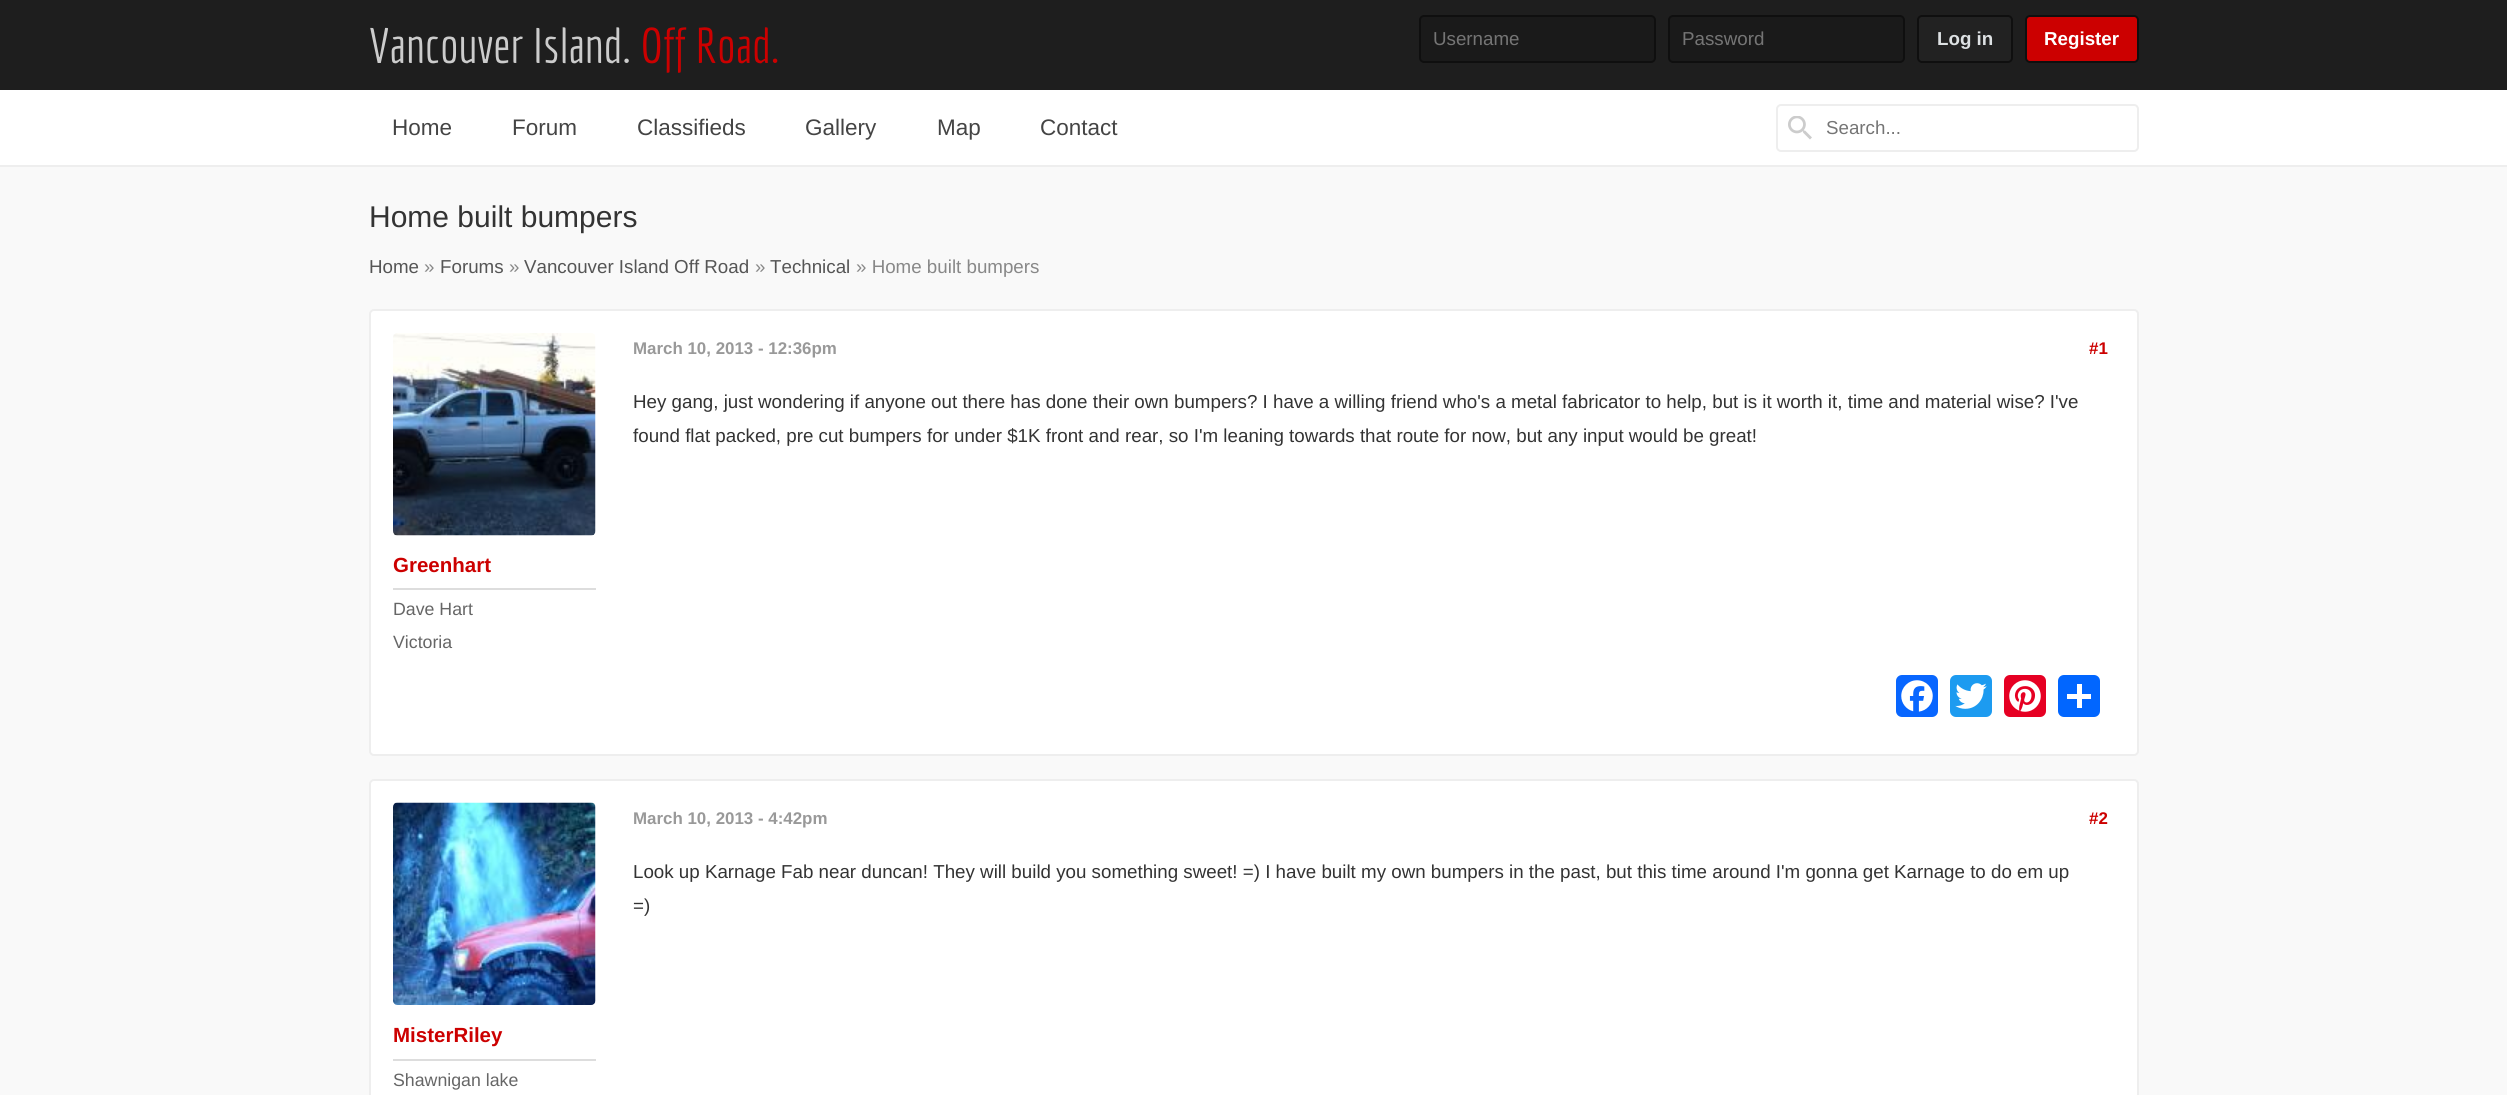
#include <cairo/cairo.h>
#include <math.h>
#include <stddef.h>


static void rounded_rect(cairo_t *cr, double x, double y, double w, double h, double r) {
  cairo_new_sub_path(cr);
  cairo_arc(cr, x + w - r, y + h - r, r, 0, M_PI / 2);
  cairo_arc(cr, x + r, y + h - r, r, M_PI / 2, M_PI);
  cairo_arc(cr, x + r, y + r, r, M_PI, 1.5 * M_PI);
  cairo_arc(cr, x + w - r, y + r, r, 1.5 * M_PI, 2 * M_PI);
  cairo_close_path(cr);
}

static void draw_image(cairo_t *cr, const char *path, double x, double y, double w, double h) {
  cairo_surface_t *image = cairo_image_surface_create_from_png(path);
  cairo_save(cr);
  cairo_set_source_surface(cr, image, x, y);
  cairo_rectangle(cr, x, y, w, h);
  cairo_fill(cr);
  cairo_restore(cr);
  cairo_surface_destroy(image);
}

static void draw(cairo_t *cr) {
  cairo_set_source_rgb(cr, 249 / 255.0, 249 / 255.0, 249 / 255.0);
  cairo_paint(cr);
  cairo_set_source_rgb(cr, 30 / 255.0, 30 / 255.0, 30 / 255.0);
  cairo_rectangle(cr, 0, 0, 2507, 90);
  cairo_fill(cr);
  cairo_set_source_rgb(cr, 26 / 255.0, 26 / 255.0, 26 / 255.0);
  rounded_rect(cr, 1420, 16, 235, 46, 4);
  cairo_fill_preserve(cr);
  cairo_set_source_rgb(cr, 15 / 255.0, 15 / 255.0, 15 / 255.0);
  cairo_stroke(cr);
  cairo_set_source_rgb(cr, 26 / 255.0, 26 / 255.0, 26 / 255.0);
  rounded_rect(cr, 1669, 16, 235, 46, 4);
  cairo_fill_preserve(cr);
  cairo_set_source_rgb(cr, 15 / 255.0, 15 / 255.0, 15 / 255.0);
  cairo_stroke(cr);
  cairo_set_source_rgb(cr, 34 / 255.0, 34 / 255.0, 34 / 255.0);
  rounded_rect(cr, 1918, 16, 94, 46, 4);
  cairo_fill_preserve(cr);
  cairo_set_source_rgb(cr, 15 / 255.0, 15 / 255.0, 15 / 255.0);
  cairo_stroke(cr);
  cairo_set_source_rgb(cr, 204 / 255.0, 0, 0);
  rounded_rect(cr, 2026, 16, 112, 46, 4);
  cairo_fill_preserve(cr);
  cairo_set_source_rgb(cr, 15 / 255.0, 15 / 255.0, 15 / 255.0);
  cairo_stroke(cr);
  cairo_set_source_rgb(cr, 1, 1, 1);
  cairo_rectangle(cr, 0, 90, 2507, 75);
  cairo_fill(cr);
  cairo_set_source_rgb(cr, 238 / 255.0, 238 / 255.0, 238 / 255.0);
  cairo_rectangle(cr, 0, 165, 2507, 2);
  cairo_fill(cr);
  rounded_rect(cr, 1777, 105, 361, 46, 4);
  cairo_stroke(cr);
  draw_image(cr, "images/1.png", 1788, 116, 24, 24);
  cairo_set_source_rgb(cr, 1, 1, 1);
  rounded_rect(cr, 370, 310, 1768, 445, 4);
  cairo_fill_preserve(cr);
  cairo_set_source_rgb(cr, 238 / 255.0, 238 / 255.0, 238 / 255.0);
  cairo_stroke(cr);
  cairo_set_source_rgb(cr, 8 / 255.0, 102 / 255.0, 1);
  rounded_rect(cr, 1896, 675, 42, 42, 6);
  cairo_fill(cr);
  draw_image(cr, "images/2.png", 1901, 680, 32, 32);
  cairo_set_source_rgb(cr, 29 / 255.0, 155 / 255.0, 240 / 255.0);
  rounded_rect(cr, 1950, 675, 42, 42, 6);
  cairo_fill(cr);
  draw_image(cr, "images/3.png", 1955, 683, 32, 26);
  cairo_set_source_rgb(cr, 230 / 255.0, 0, 35 / 255.0);
  rounded_rect(cr, 2004, 675, 42, 42, 6);
  cairo_fill(cr);
  draw_image(cr, "images/4.png", 2009, 680, 32, 32);
  cairo_set_source_rgb(cr, 1 / 255.0, 102 / 255.0, 1);
  rounded_rect(cr, 2058, 675, 42, 42, 6);
  cairo_fill(cr);
  cairo_set_source_rgb(cr, 1, 1, 1);
  cairo_rectangle(cr, 2077, 684, 5, 24);
  cairo_fill(cr);
  cairo_rectangle(cr, 2067, 694, 24, 5);
  cairo_fill(cr);
  draw_image(cr, "images/5.png", 393, 333, 203, 203);
  cairo_set_source_rgb(cr, 221 / 255.0, 221 / 255.0, 221 / 255.0);
  cairo_rectangle(cr, 393, 588, 203, 2);
  cairo_fill(cr);
  cairo_set_source_rgb(cr, 1, 1, 1);
  rounded_rect(cr, 370, 780, 1768, 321, 4);
  cairo_fill_preserve(cr);
  cairo_set_source_rgb(cr, 238 / 255.0, 238 / 255.0, 238 / 255.0);
  cairo_stroke(cr);
  draw_image(cr, "images/6.png", 393, 802, 203, 203);
  cairo_set_source_rgb(cr, 221 / 255.0, 221 / 255.0, 221 / 255.0);
  cairo_rectangle(cr, 393, 1059, 203, 2);
  cairo_fill(cr);
  cairo_select_font_face(cr, "Economica", CAIRO_FONT_SLANT_NORMAL, CAIRO_FONT_WEIGHT_NORMAL);
  cairo_set_font_size(cr, 48.75);
  cairo_set_source_rgb(cr, 204 / 255.0, 204 / 255.0, 204 / 255.0);
  cairo_move_to(cr, 369, 63);
  cairo_show_text(cr, "Vancouver Island.");
  cairo_set_source_rgb(cr, 204 / 255.0, 0, 0);
  cairo_move_to(cr, 640, 63);
  cairo_show_text(cr, "Off Road.");
  cairo_select_font_face(cr, "Liberation Sans", CAIRO_FONT_SLANT_NORMAL, CAIRO_FONT_WEIGHT_NORMAL);
  cairo_set_font_size(cr, 18.75);
  cairo_set_source_rgb(cr, 117 / 255.0, 117 / 255.0, 117 / 255.0);
  cairo_move_to(cr, 1433, 45);
  cairo_show_text(cr, "Username");
  cairo_move_to(cr, 1682, 45);
  cairo_show_text(cr, "Password");
  cairo_select_font_face(cr, "Liberation Sans", CAIRO_FONT_SLANT_NORMAL, CAIRO_FONT_WEIGHT_BOLD);
  cairo_set_source_rgb(cr, 221 / 255.0, 225 / 255.0, 227 / 255.0);
  cairo_move_to(cr, 1937, 45);
  cairo_show_text(cr, "Log in");
  cairo_set_source_rgb(cr, 1, 1, 1);
  cairo_move_to(cr, 2044, 45);
  cairo_show_text(cr, "Register");
  cairo_select_font_face(cr, "Liberation Sans", CAIRO_FONT_SLANT_NORMAL, CAIRO_FONT_WEIGHT_NORMAL);
  cairo_set_font_size(cr, 22.5);
  cairo_set_source_rgb(cr, 68 / 255.0, 68 / 255.0, 68 / 255.0);
  cairo_move_to(cr, 392, 135);
  cairo_show_text(cr, "Home");
  cairo_move_to(cr, 512, 135);
  cairo_show_text(cr, "Forum");
  cairo_move_to(cr, 637, 135);
  cairo_show_text(cr, "Classifieds");
  cairo_move_to(cr, 805, 135);
  cairo_show_text(cr, "Gallery");
  cairo_move_to(cr, 937, 135);
  cairo_show_text(cr, "Map");
  cairo_move_to(cr, 1040, 135);
  cairo_show_text(cr, "Contact");
  cairo_set_font_size(cr, 18.75);
  cairo_set_source_rgb(cr, 117 / 255.0, 117 / 255.0, 117 / 255.0);
  cairo_move_to(cr, 1826, 134);
  cairo_show_text(cr, "Search...");
  cairo_set_font_size(cr, 30);
  cairo_set_source_rgb(cr, 51 / 255.0, 51 / 255.0, 51 / 255.0);
  cairo_move_to(cr, 369, 227);
  cairo_show_text(cr, "Home built bumpers");
  cairo_set_font_size(cr, 18.75);
  cairo_set_source_rgb(cr, 85 / 255.0, 85 / 255.0, 85 / 255.0);
  cairo_move_to(cr, 369, 273);
  cairo_show_text(cr, "Home");
  cairo_set_source_rgb(cr, 136 / 255.0, 136 / 255.0, 136 / 255.0);
  cairo_move_to(cr, 424, 273);
  cairo_show_text(cr, "»");
  cairo_set_source_rgb(cr, 85 / 255.0, 85 / 255.0, 85 / 255.0);
  cairo_move_to(cr, 440, 273);
  cairo_show_text(cr, "Forums");
  cairo_set_source_rgb(cr, 136 / 255.0, 136 / 255.0, 136 / 255.0);
  cairo_move_to(cr, 509, 273);
  cairo_show_text(cr, "»");
  cairo_set_source_rgb(cr, 85 / 255.0, 85 / 255.0, 85 / 255.0);
  cairo_move_to(cr, 524, 273);
  cairo_show_text(cr, "Vancouver Island Off Road");
  cairo_set_source_rgb(cr, 136 / 255.0, 136 / 255.0, 136 / 255.0);
  cairo_move_to(cr, 755, 273);
  cairo_show_text(cr, "»");
  cairo_set_source_rgb(cr, 85 / 255.0, 85 / 255.0, 85 / 255.0);
  cairo_move_to(cr, 770, 273);
  cairo_show_text(cr, "Technical");
  cairo_set_source_rgb(cr, 136 / 255.0, 136 / 255.0, 136 / 255.0);
  cairo_move_to(cr, 856, 273);
  cairo_show_text(cr, "» Home built bumpers");
  cairo_select_font_face(cr, "Liberation Sans", CAIRO_FONT_SLANT_NORMAL, CAIRO_FONT_WEIGHT_BOLD);
  cairo_set_font_size(cr, 16.9);
  cairo_set_source_rgb(cr, 153 / 255.0, 153 / 255.0, 153 / 255.0);
  cairo_move_to(cr, 633, 354);
  cairo_show_text(cr, "March 10, 2013 - 12:36pm");
  cairo_set_source_rgb(cr, 204 / 255.0, 0, 0);
  cairo_move_to(cr, 2089, 354);
  cairo_show_text(cr, "#1");
  cairo_select_font_face(cr, "Liberation Sans", CAIRO_FONT_SLANT_NORMAL, CAIRO_FONT_WEIGHT_NORMAL);
  cairo_set_font_size(cr, 18.75);
  cairo_set_source_rgb(cr, 51 / 255.0, 51 / 255.0, 51 / 255.0);
  cairo_move_to(cr, 633, 408);
  cairo_show_text(cr, "Hey gang, just wondering if anyone out there has done their own bumpers? I have a willing friend who's a metal fabricator to help, but is it worth it, time and material wise? I've");
  cairo_move_to(cr, 633, 442);
  cairo_show_text(cr, "found flat packed, pre cut bumpers for under $1K front and rear, so I'm leaning towards that route for now, but any input would be great!");
  cairo_select_font_face(cr, "Liberation Sans", CAIRO_FONT_SLANT_NORMAL, CAIRO_FONT_WEIGHT_BOLD);
  cairo_set_font_size(cr, 20.5);
  cairo_set_source_rgb(cr, 204 / 255.0, 0, 0);
  cairo_move_to(cr, 393, 572);
  cairo_show_text(cr, "Greenhart");
  cairo_select_font_face(cr, "Liberation Sans", CAIRO_FONT_SLANT_NORMAL, CAIRO_FONT_WEIGHT_NORMAL);
  cairo_set_font_size(cr, 17.75);
  cairo_set_source_rgb(cr, 102 / 255.0, 102 / 255.0, 102 / 255.0);
  cairo_move_to(cr, 393, 615);
  cairo_show_text(cr, "Dave Hart");
  cairo_move_to(cr, 393, 648);
  cairo_show_text(cr, "Victoria");
  cairo_select_font_face(cr, "Liberation Sans", CAIRO_FONT_SLANT_NORMAL, CAIRO_FONT_WEIGHT_BOLD);
  cairo_set_font_size(cr, 16.9);
  cairo_set_source_rgb(cr, 153 / 255.0, 153 / 255.0, 153 / 255.0);
  cairo_move_to(cr, 633, 824);
  cairo_show_text(cr, "March 10, 2013 - 4:42pm");
  cairo_set_source_rgb(cr, 204 / 255.0, 0, 0);
  cairo_move_to(cr, 2089, 824);
  cairo_show_text(cr, "#2");
  cairo_select_font_face(cr, "Liberation Sans", CAIRO_FONT_SLANT_NORMAL, CAIRO_FONT_WEIGHT_NORMAL);
  cairo_set_font_size(cr, 18.75);
  cairo_set_source_rgb(cr, 51 / 255.0, 51 / 255.0, 51 / 255.0);
  cairo_move_to(cr, 633, 878);
  cairo_show_text(cr, "Look up Karnage Fab near duncan! They will build you something sweet! =) I have built my own bumpers in the past, but this time around I'm gonna get Karnage to do em up");
  cairo_move_to(cr, 633, 912);
  cairo_show_text(cr, "=)");
  cairo_select_font_face(cr, "Liberation Sans", CAIRO_FONT_SLANT_NORMAL, CAIRO_FONT_WEIGHT_BOLD);
  cairo_set_font_size(cr, 20.5);
  cairo_set_source_rgb(cr, 204 / 255.0, 0, 0);
  cairo_move_to(cr, 393, 1042);
  cairo_show_text(cr, "MisterRiley");
  cairo_select_font_face(cr, "Liberation Sans", CAIRO_FONT_SLANT_NORMAL, CAIRO_FONT_WEIGHT_NORMAL);
  cairo_set_font_size(cr, 17.75);
  cairo_set_source_rgb(cr, 102 / 255.0, 102 / 255.0, 102 / 255.0);
  cairo_move_to(cr, 393, 1086);
  cairo_show_text(cr, "Shawnigan lake");
}

int main(void) {
  cairo_surface_t *surface = cairo_image_surface_create(CAIRO_FORMAT_RGB24, 2507, 1095);
  cairo_t *cr = cairo_create(surface);
  cairo_font_options_t *options = cairo_font_options_create();
  cairo_font_options_set_hint_metrics(options, CAIRO_HINT_METRICS_OFF);
  cairo_font_options_set_hint_style(options, CAIRO_HINT_STYLE_NONE);
  cairo_set_font_options(cr, options);
  cairo_set_miter_limit(cr, 4);
  draw(cr);
  cairo_surface_write_to_png(surface, "out.png");
  cairo_font_options_destroy(options);
  cairo_destroy(cr);
  cairo_surface_destroy(surface);
  return 0;
}
